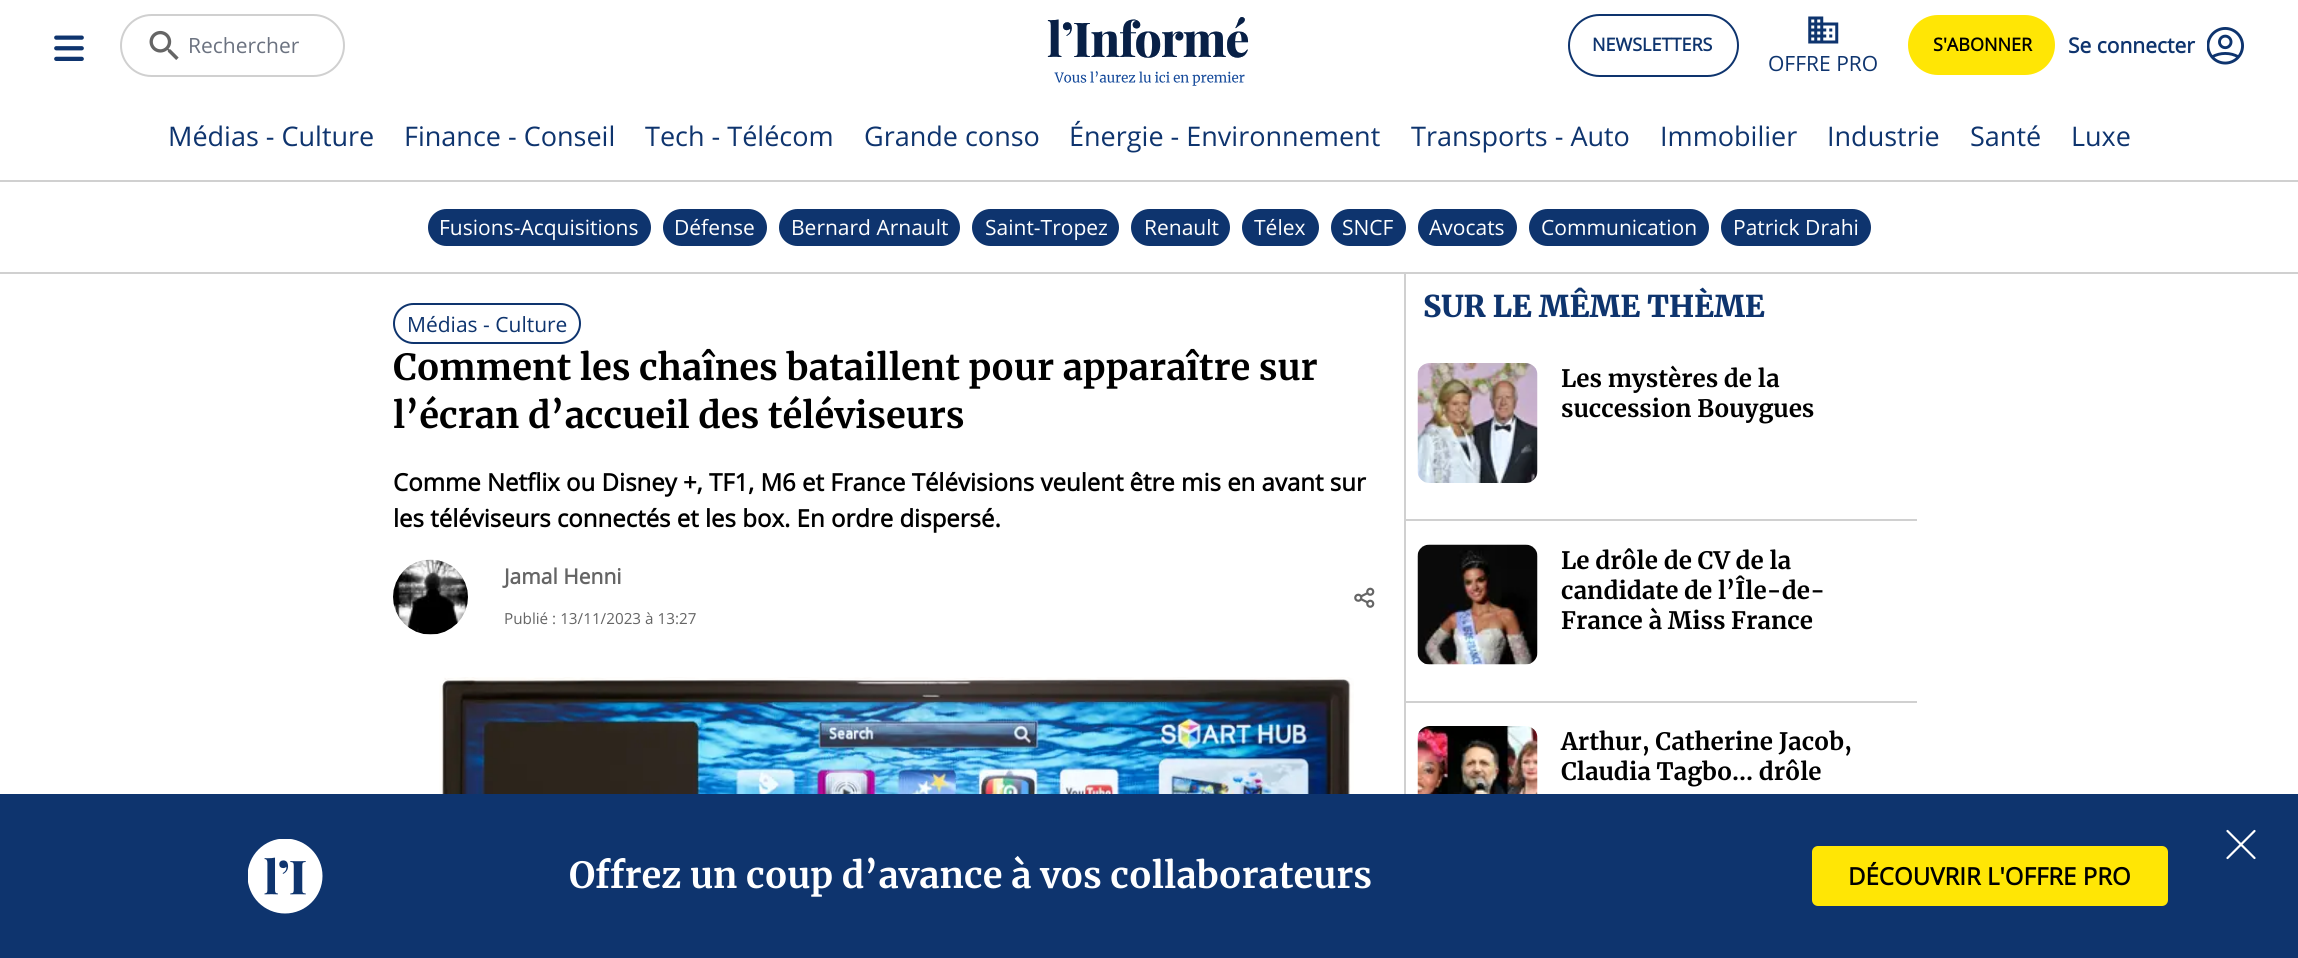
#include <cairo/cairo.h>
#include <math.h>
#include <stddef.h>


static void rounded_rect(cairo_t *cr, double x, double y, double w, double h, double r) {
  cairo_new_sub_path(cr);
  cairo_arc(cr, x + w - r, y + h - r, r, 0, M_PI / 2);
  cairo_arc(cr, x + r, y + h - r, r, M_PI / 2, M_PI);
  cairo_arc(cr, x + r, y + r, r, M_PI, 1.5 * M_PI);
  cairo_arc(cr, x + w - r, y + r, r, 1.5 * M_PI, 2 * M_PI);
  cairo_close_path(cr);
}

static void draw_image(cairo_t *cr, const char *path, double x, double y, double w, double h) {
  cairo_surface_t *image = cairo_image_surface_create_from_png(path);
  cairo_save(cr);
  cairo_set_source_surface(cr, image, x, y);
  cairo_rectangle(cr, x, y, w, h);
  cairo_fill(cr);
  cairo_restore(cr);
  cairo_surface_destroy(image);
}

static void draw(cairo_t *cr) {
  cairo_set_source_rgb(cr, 1, 1, 1);
  cairo_paint(cr);
  cairo_set_source_rgb(cr, 208 / 255.0, 208 / 255.0, 208 / 255.0);
  cairo_rectangle(cr, 0, 180, 2298, 2);
  cairo_fill(cr);
  draw_image(cr, "images/1.png", 54, 35, 30, 26);
  rounded_rect(cr, 121, 15, 223, 61, 30.5);
  cairo_stroke(cr);
  draw_image(cr, "images/2.png", 149, 30, 30, 30);
  draw_image(cr, "images/3.png", 1047, 17, 202, 69);
  rounded_rect(cr, 1569, 15, 169, 61, 30.5);
  cairo_set_source_rgb(cr, 14 / 255.0, 52 / 255.0, 110 / 255.0);
  cairo_stroke(cr);
  cairo_set_source_rgb(cr, 1, 230 / 255.0, 5 / 255.0);
  rounded_rect(cr, 1908, 15, 147, 60, 30);
  cairo_fill(cr);
  draw_image(cr, "images/4.png", 2207, 27, 37, 38);
  draw_image(cr, "images/5.png", 1808, 16, 31, 28);
  cairo_set_source_rgb(cr, 208 / 255.0, 208 / 255.0, 208 / 255.0);
  cairo_rectangle(cr, 0, 272, 2298, 2);
  cairo_fill(cr);
  cairo_set_source_rgb(cr, 14 / 255.0, 52 / 255.0, 110 / 255.0);
  rounded_rect(cr, 428, 209, 223, 37, 18.5);
  cairo_fill(cr);
  rounded_rect(cr, 663, 209, 104, 37, 18.5);
  cairo_fill(cr);
  rounded_rect(cr, 779, 209, 181, 37, 18.5);
  cairo_fill(cr);
  rounded_rect(cr, 972, 209, 147, 37, 18.5);
  cairo_fill(cr);
  rounded_rect(cr, 1131, 209, 99, 37, 18.5);
  cairo_fill(cr);
  rounded_rect(cr, 1242, 209, 77, 37, 18.5);
  cairo_fill(cr);
  rounded_rect(cr, 1331, 209, 75, 37, 18.5);
  cairo_fill(cr);
  rounded_rect(cr, 1418, 209, 99, 37, 18.5);
  cairo_fill(cr);
  rounded_rect(cr, 1529, 209, 180, 37, 18.5);
  cairo_fill(cr);
  rounded_rect(cr, 1721, 209, 150, 37, 18.5);
  cairo_fill(cr);
  cairo_set_source_rgb(cr, 208 / 255.0, 208 / 255.0, 208 / 255.0);
  cairo_rectangle(cr, 1404, 273, 2, 521);
  cairo_fill(cr);
  rounded_rect(cr, 394, 304, 186, 39, 19.5);
  cairo_set_source_rgb(cr, 14 / 255.0, 52 / 255.0, 110 / 255.0);
  cairo_stroke(cr);
  draw_image(cr, "images/6.png", 393, 559, 75, 76);
  draw_image(cr, "images/7.png", 1354, 587, 21, 21);
  draw_image(cr, "images/8.png", 439, 677, 915, 117);
  draw_image(cr, "images/9.png", 1417, 363, 121, 120);
  cairo_set_source_rgb(cr, 208 / 255.0, 208 / 255.0, 208 / 255.0);
  cairo_rectangle(cr, 1406, 519, 511, 2);
  cairo_fill(cr);
  draw_image(cr, "images/10.png", 1417, 544, 121, 121);
  cairo_rectangle(cr, 1406, 701, 511, 2);
  cairo_fill(cr);
  draw_image(cr, "images/11.png", 1417, 726, 121, 68);
  cairo_set_source_rgb(cr, 14 / 255.0, 52 / 255.0, 110 / 255.0);
  cairo_rectangle(cr, 0, 794, 2298, 164);
  cairo_fill(cr);
  draw_image(cr, "images/12.png", 248, 839, 75, 75);
  cairo_set_source_rgb(cr, 1, 230 / 255.0, 5 / 255.0);
  rounded_rect(cr, 1812, 846, 356, 60, 6);
  cairo_fill(cr);
  cairo_new_path(cr);
  cairo_move_to(cr, 2227.5, 858);
  cairo_line_to(cr, 2254.5, 831);
  cairo_move_to(cr, 2227.5, 831);
  cairo_line_to(cr, 2254.5, 858);
  cairo_set_source_rgb(cr, 1, 1, 1);
  cairo_set_line_width(cr, 2.2);
  cairo_set_line_cap(cr, CAIRO_LINE_CAP_ROUND);
  cairo_set_line_join(cr, CAIRO_LINE_JOIN_ROUND);
  cairo_stroke(cr);
  cairo_select_font_face(cr, "Open Sans", CAIRO_FONT_SLANT_NORMAL, CAIRO_FONT_WEIGHT_NORMAL);
  cairo_set_font_size(cr, 21);
  cairo_set_source_rgb(cr, 107 / 255.0, 114 / 255.0, 128 / 255.0);
  cairo_move_to(cr, 188, 53);
  cairo_show_text(cr, "Rechercher");
  cairo_select_font_face(cr, "Open Sans", CAIRO_FONT_SLANT_NORMAL, CAIRO_FONT_WEIGHT_BOLD);
  cairo_set_font_size(cr, 18);
  cairo_set_source_rgb(cr, 14 / 255.0, 52 / 255.0, 110 / 255.0);
  cairo_move_to(cr, 1592, 51);
  cairo_show_text(cr, "NEWSLETTERS");
  cairo_set_source_rgb(cr, 0, 0, 0);
  cairo_move_to(cr, 1933, 51);
  cairo_show_text(cr, "S'ABONNER");
  cairo_set_font_size(cr, 21);
  cairo_set_source_rgb(cr, 14 / 255.0, 52 / 255.0, 110 / 255.0);
  cairo_move_to(cr, 2068, 53);
  cairo_show_text(cr, "Se connecter");
  cairo_select_font_face(cr, "Open Sans", CAIRO_FONT_SLANT_NORMAL, CAIRO_FONT_WEIGHT_NORMAL);
  cairo_move_to(cr, 1768, 71);
  cairo_show_text(cr, "OFFRE PRO");
  cairo_set_font_size(cr, 27);
  cairo_move_to(cr, 168, 146);
  cairo_show_text(cr, "Médias - Culture");
  cairo_move_to(cr, 404, 146);
  cairo_show_text(cr, "Finance - Conseil");
  cairo_move_to(cr, 645, 146);
  cairo_show_text(cr, "Tech - Télécom");
  cairo_move_to(cr, 864, 146);
  cairo_show_text(cr, "Grande conso");
  cairo_move_to(cr, 1069, 146);
  cairo_show_text(cr, "Énergie - Environnement");
  cairo_move_to(cr, 1411, 146);
  cairo_show_text(cr, "Transports - Auto");
  cairo_move_to(cr, 1660, 146);
  cairo_show_text(cr, "Immobilier");
  cairo_move_to(cr, 1827, 146);
  cairo_show_text(cr, "Industrie");
  cairo_move_to(cr, 1970, 146);
  cairo_show_text(cr, "Santé");
  cairo_move_to(cr, 2071, 146);
  cairo_show_text(cr, "Luxe");
  cairo_set_font_size(cr, 21);
  cairo_set_source_rgb(cr, 1, 1, 1);
  cairo_move_to(cr, 439, 235);
  cairo_show_text(cr, "Fusions-Acquisitions");
  cairo_move_to(cr, 674, 235);
  cairo_show_text(cr, "Défense");
  cairo_move_to(cr, 791, 235);
  cairo_show_text(cr, "Bernard Arnault");
  cairo_move_to(cr, 985, 235);
  cairo_show_text(cr, "Saint-Tropez");
  cairo_move_to(cr, 1144, 235);
  cairo_show_text(cr, "Renault");
  cairo_move_to(cr, 1254, 235);
  cairo_show_text(cr, "Télex");
  cairo_move_to(cr, 1342, 235);
  cairo_show_text(cr, "SNCF");
  cairo_move_to(cr, 1429, 235);
  cairo_show_text(cr, "Avocats");
  cairo_move_to(cr, 1541, 235);
  cairo_show_text(cr, "Communication");
  cairo_move_to(cr, 1733, 235);
  cairo_show_text(cr, "Patrick Drahi");
  cairo_set_source_rgb(cr, 14 / 255.0, 52 / 255.0, 110 / 255.0);
  cairo_move_to(cr, 407, 332);
  cairo_show_text(cr, "Médias - Culture");
  cairo_select_font_face(cr, "Merriweather", CAIRO_FONT_SLANT_NORMAL, CAIRO_FONT_WEIGHT_BOLD);
  cairo_set_font_size(cr, 36);
  cairo_set_source_rgb(cr, 0, 0, 0);
  cairo_move_to(cr, 393, 380);
  cairo_show_text(cr, "Comment les chaînes bataillent pour apparaître sur");
  cairo_move_to(cr, 393, 428);
  cairo_show_text(cr, "l’écran d’accueil des téléviseurs");
  cairo_select_font_face(cr, "Open Sans", CAIRO_FONT_SLANT_NORMAL, CAIRO_FONT_WEIGHT_BOLD);
  cairo_set_font_size(cr, 24);
  cairo_move_to(cr, 393, 491);
  cairo_show_text(cr, "Comme Netflix ou Disney +, TF1, M6 et France Télévisions veulent être mis en avant sur");
  cairo_move_to(cr, 393, 527);
  cairo_show_text(cr, "les téléviseurs connectés et les box. En ordre dispersé.");
  cairo_set_font_size(cr, 21);
  cairo_set_source_rgb(cr, 101 / 255.0, 101 / 255.0, 101 / 255.0);
  cairo_move_to(cr, 504, 584);
  cairo_show_text(cr, "Jamal Henni");
  cairo_select_font_face(cr, "Open Sans", CAIRO_FONT_SLANT_NORMAL, CAIRO_FONT_WEIGHT_NORMAL);
  cairo_set_font_size(cr, 15.25);
  cairo_move_to(cr, 504, 624);
  cairo_show_text(cr, "Publié : 13/11/2023 à 13:27");
  cairo_select_font_face(cr, "Merriweather Black", CAIRO_FONT_SLANT_NORMAL, CAIRO_FONT_WEIGHT_NORMAL);
  cairo_set_font_size(cr, 30);
  cairo_set_source_rgb(cr, 14 / 255.0, 52 / 255.0, 110 / 255.0);
  cairo_move_to(cr, 1423, 317);
  cairo_show_text(cr, "SUR LE MÊME THÈME");
  cairo_select_font_face(cr, "Merriweather", CAIRO_FONT_SLANT_NORMAL, CAIRO_FONT_WEIGHT_BOLD);
  cairo_set_font_size(cr, 24);
  cairo_set_source_rgb(cr, 0, 0, 0);
  cairo_move_to(cr, 1561, 387);
  cairo_show_text(cr, "Les mystères de la");
  cairo_move_to(cr, 1561, 417);
  cairo_show_text(cr, "succession Bouygues");
  cairo_move_to(cr, 1561, 569);
  cairo_show_text(cr, "Le drôle de CV de la");
  cairo_move_to(cr, 1561, 599);
  cairo_show_text(cr, "candidate de l’Île-de-");
  cairo_move_to(cr, 1561, 629);
  cairo_show_text(cr, "France à Miss France");
  cairo_move_to(cr, 1561, 750);
  cairo_show_text(cr, "Arthur, Catherine Jacob,");
  cairo_move_to(cr, 1561, 780);
  cairo_show_text(cr, "Claudia Tagbo… drôle");
  cairo_set_font_size(cr, 36);
  cairo_set_source_rgb(cr, 1, 1, 1);
  cairo_move_to(cr, 569, 888);
  cairo_show_text(cr, "Offrez un coup d’avance à vos collaborateurs");
  cairo_select_font_face(cr, "Open Sans", CAIRO_FONT_SLANT_NORMAL, CAIRO_FONT_WEIGHT_BOLD);
  cairo_set_font_size(cr, 24);
  cairo_set_source_rgb(cr, 0, 0, 0);
  cairo_move_to(cr, 1848, 885);
  cairo_show_text(cr, "DÉCOUVRIR L'OFFRE PRO");
}

int main(void) {
  cairo_surface_t *surface = cairo_image_surface_create(CAIRO_FORMAT_RGB24, 2298, 958);
  cairo_t *cr = cairo_create(surface);
  cairo_font_options_t *options = cairo_font_options_create();
  cairo_font_options_set_hint_metrics(options, CAIRO_HINT_METRICS_OFF);
  cairo_font_options_set_hint_style(options, CAIRO_HINT_STYLE_NONE);
  cairo_set_font_options(cr, options);
  cairo_set_miter_limit(cr, 4);
  draw(cr);
  cairo_surface_write_to_png(surface, "out.png");
  cairo_font_options_destroy(options);
  cairo_destroy(cr);
  cairo_surface_destroy(surface);
  return 0;
}
